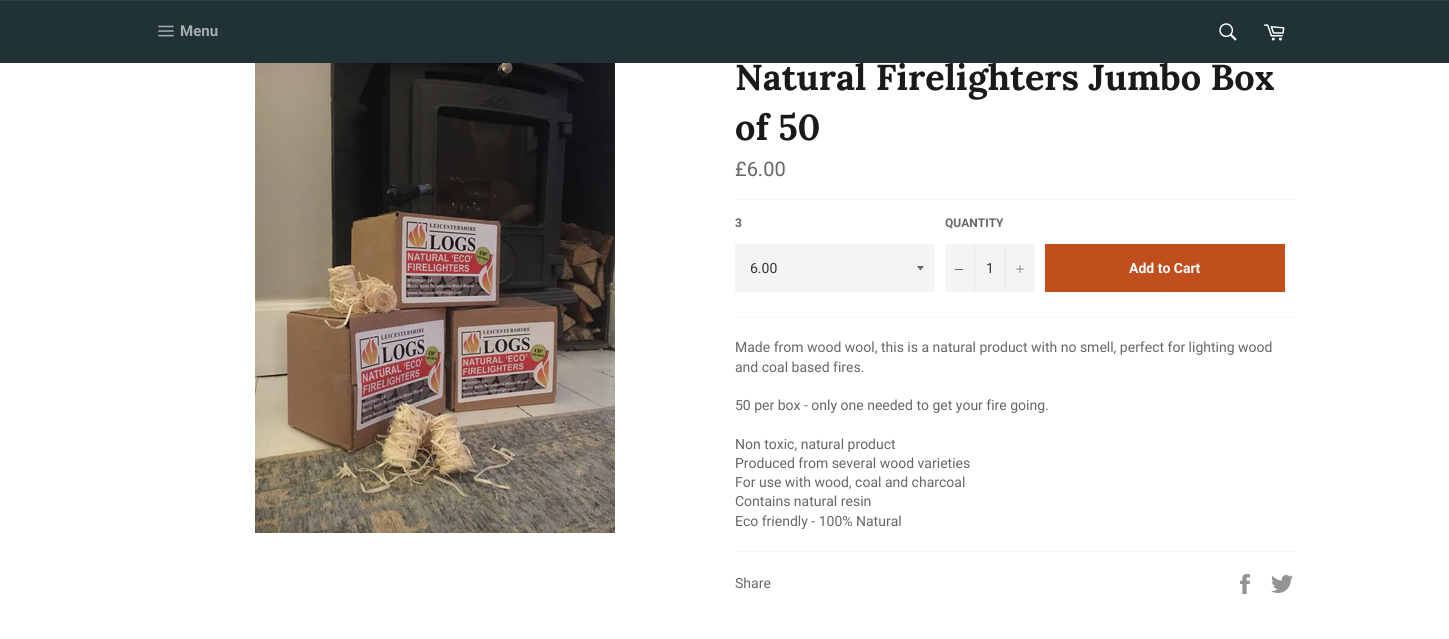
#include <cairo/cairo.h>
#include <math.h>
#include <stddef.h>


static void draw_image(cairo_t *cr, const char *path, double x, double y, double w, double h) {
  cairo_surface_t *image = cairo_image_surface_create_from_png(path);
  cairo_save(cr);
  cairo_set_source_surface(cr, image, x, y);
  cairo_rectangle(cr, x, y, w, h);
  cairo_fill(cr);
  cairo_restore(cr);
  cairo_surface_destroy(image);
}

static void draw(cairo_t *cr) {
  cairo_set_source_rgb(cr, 1, 1, 1);
  cairo_paint(cr);
  cairo_set_source_rgb(cr, 43 / 255.0, 65 / 255.0, 70 / 255.0);
  cairo_rectangle(cr, 0, 0, 1449, 1);
  cairo_fill(cr);
  draw_image(cr, "images/4.png", 255, 63, 360, 470);
  cairo_set_source_rgb(cr, 247 / 255.0, 247 / 255.0, 247 / 255.0);
  cairo_rectangle(cr, 735, 199, 560, 1);
  cairo_fill(cr);
  cairo_set_source_rgb(cr, 244 / 255.0, 244 / 255.0, 244 / 255.0);
  cairo_rectangle(cr, 735, 244, 200, 48);
  cairo_fill(cr);
  cairo_set_source_rgb(cr, 102 / 255.0, 102 / 255.0, 102 / 255.0);
  cairo_new_path(cr);
  cairo_move_to(cr, 917, 266);
  cairo_curve_to(cr, 921.5, 271.5, 919.5, 271.5, 924, 266);
  cairo_close_path(cr);
  cairo_fill(cr);
  cairo_set_source_rgb(cr, 244 / 255.0, 244 / 255.0, 244 / 255.0);
  cairo_rectangle(cr, 945, 244, 90, 48);
  cairo_fill(cr);
  cairo_set_source_rgb(cr, 231 / 255.0, 231 / 255.0, 231 / 255.0);
  cairo_rectangle(cr, 974, 244, 1, 48);
  cairo_fill(cr);
  cairo_set_source_rgb(cr, 102 / 255.0, 102 / 255.0, 102 / 255.0);
  cairo_rectangle(cr, 955, 269, 8, 1);
  cairo_fill(cr);
  cairo_set_source_rgb(cr, 231 / 255.0, 231 / 255.0, 231 / 255.0);
  cairo_rectangle(cr, 1005, 244, 1, 48);
  cairo_fill(cr);
  draw_image(cr, "images/5.png", 1016, 265, 8, 8);
  cairo_set_source_rgb(cr, 192 / 255.0, 79 / 255.0, 29 / 255.0);
  cairo_rectangle(cr, 1045, 244, 240, 48);
  cairo_fill(cr);
  cairo_set_source_rgb(cr, 247 / 255.0, 247 / 255.0, 247 / 255.0);
  cairo_rectangle(cr, 735, 317, 560, 1);
  cairo_fill(cr);
  cairo_rectangle(cr, 735, 551, 560, 1);
  cairo_fill(cr);
  draw_image(cr, "images/6.png", 1240, 574, 10, 20);
  draw_image(cr, "images/7.png", 1271, 575, 22, 18);
  cairo_select_font_face(cr, "Lora", CAIRO_FONT_SLANT_NORMAL, CAIRO_FONT_WEIGHT_BOLD);
  cairo_set_font_size(cr, 36);
  cairo_set_source_rgb(cr, 26 / 255.0, 26 / 255.0, 26 / 255.0);
  cairo_move_to(cr, 735, 90);
  cairo_show_text(cr, "Natural Firelighters Jumbo Box");
  cairo_set_source_rgb(cr, 33 / 255.0, 50 / 255.0, 54 / 255.0);
  cairo_rectangle(cr, 0, 1, 1449, 62);
  cairo_fill(cr);
  draw_image(cr, "images/2.png", 1219, 23, 18, 18);
  draw_image(cr, "images/3.png", 1263, 24, 22, 17);
  draw_image(cr, "images/1.png", 158, 25, 16, 12);
  cairo_select_font_face(cr, "Roboto", CAIRO_FONT_SLANT_NORMAL, CAIRO_FONT_WEIGHT_BOLD);
  cairo_set_font_size(cr, 15);
  cairo_set_source_rgb(cr, 166 / 255.0, 173 / 255.0, 175 / 255.0);
  cairo_move_to(cr, 180, 36);
  cairo_show_text(cr, "Menu");
  cairo_select_font_face(cr, "Lora", CAIRO_FONT_SLANT_NORMAL, CAIRO_FONT_WEIGHT_BOLD);
  cairo_set_font_size(cr, 36);
  cairo_set_source_rgb(cr, 26 / 255.0, 26 / 255.0, 26 / 255.0);
  cairo_move_to(cr, 735, 140);
  cairo_show_text(cr, "of 50");
  cairo_select_font_face(cr, "Roboto", CAIRO_FONT_SLANT_NORMAL, CAIRO_FONT_WEIGHT_NORMAL);
  cairo_set_font_size(cr, 20);
  cairo_set_source_rgb(cr, 102 / 255.0, 102 / 255.0, 102 / 255.0);
  cairo_move_to(cr, 735, 176);
  cairo_show_text(cr, "£6.00");
  cairo_select_font_face(cr, "Roboto", CAIRO_FONT_SLANT_NORMAL, CAIRO_FONT_WEIGHT_BOLD);
  cairo_set_font_size(cr, 12);
  cairo_move_to(cr, 735, 227);
  cairo_show_text(cr, "3");
  cairo_select_font_face(cr, "Roboto", CAIRO_FONT_SLANT_NORMAL, CAIRO_FONT_WEIGHT_NORMAL);
  cairo_set_font_size(cr, 14);
  cairo_set_source_rgb(cr, 51 / 255.0, 51 / 255.0, 51 / 255.0);
  cairo_move_to(cr, 750, 273);
  cairo_show_text(cr, "6.00");
  cairo_select_font_face(cr, "Roboto", CAIRO_FONT_SLANT_NORMAL, CAIRO_FONT_WEIGHT_BOLD);
  cairo_set_font_size(cr, 12);
  cairo_set_source_rgb(cr, 102 / 255.0, 102 / 255.0, 102 / 255.0);
  cairo_move_to(cr, 945, 227);
  cairo_show_text(cr, "QUANTITY");
  cairo_select_font_face(cr, "Roboto", CAIRO_FONT_SLANT_NORMAL, CAIRO_FONT_WEIGHT_NORMAL);
  cairo_set_font_size(cr, 14);
  cairo_set_source_rgb(cr, 51 / 255.0, 51 / 255.0, 51 / 255.0);
  cairo_move_to(cr, 986, 273);
  cairo_show_text(cr, "1");
  cairo_select_font_face(cr, "Roboto", CAIRO_FONT_SLANT_NORMAL, CAIRO_FONT_WEIGHT_BOLD);
  cairo_set_source_rgb(cr, 1, 1, 1);
  cairo_move_to(cr, 1129, 273);
  cairo_show_text(cr, "Add to Cart");
  cairo_select_font_face(cr, "Roboto", CAIRO_FONT_SLANT_NORMAL, CAIRO_FONT_WEIGHT_NORMAL);
  cairo_set_source_rgb(cr, 102 / 255.0, 102 / 255.0, 102 / 255.0);
  cairo_move_to(cr, 735, 352);
  cairo_show_text(cr, "Made from wood wool, this is a natural product with no smell, perfect for lighting wood");
  cairo_move_to(cr, 735, 372);
  cairo_show_text(cr, "and coal based fires.");
  cairo_move_to(cr, 735, 410);
  cairo_show_text(cr, "50 per box - only one needed to get your fire going.");
  cairo_move_to(cr, 735, 449);
  cairo_show_text(cr, "Non toxic, natural product");
  cairo_move_to(cr, 735, 468);
  cairo_show_text(cr, "Produced from several wood varieties");
  cairo_move_to(cr, 735, 487);
  cairo_show_text(cr, "For use with wood, coal and charcoal");
  cairo_move_to(cr, 735, 506);
  cairo_show_text(cr, "Contains natural resin");
  cairo_move_to(cr, 735, 526);
  cairo_show_text(cr, "Eco friendly - 100% Natural");
  cairo_move_to(cr, 735, 588);
  cairo_show_text(cr, "Share");
}

int main(void) {
  cairo_surface_t *surface = cairo_image_surface_create(CAIRO_FORMAT_RGB24, 1449, 639);
  cairo_t *cr = cairo_create(surface);
  cairo_font_options_t *options = cairo_font_options_create();
  cairo_font_options_set_hint_metrics(options, CAIRO_HINT_METRICS_OFF);
  cairo_font_options_set_hint_style(options, CAIRO_HINT_STYLE_NONE);
  cairo_set_font_options(cr, options);
  cairo_set_miter_limit(cr, 4);
  draw(cr);
  cairo_surface_write_to_png(surface, "out.png");
  cairo_font_options_destroy(options);
  cairo_destroy(cr);
  cairo_surface_destroy(surface);
  return 0;
}
